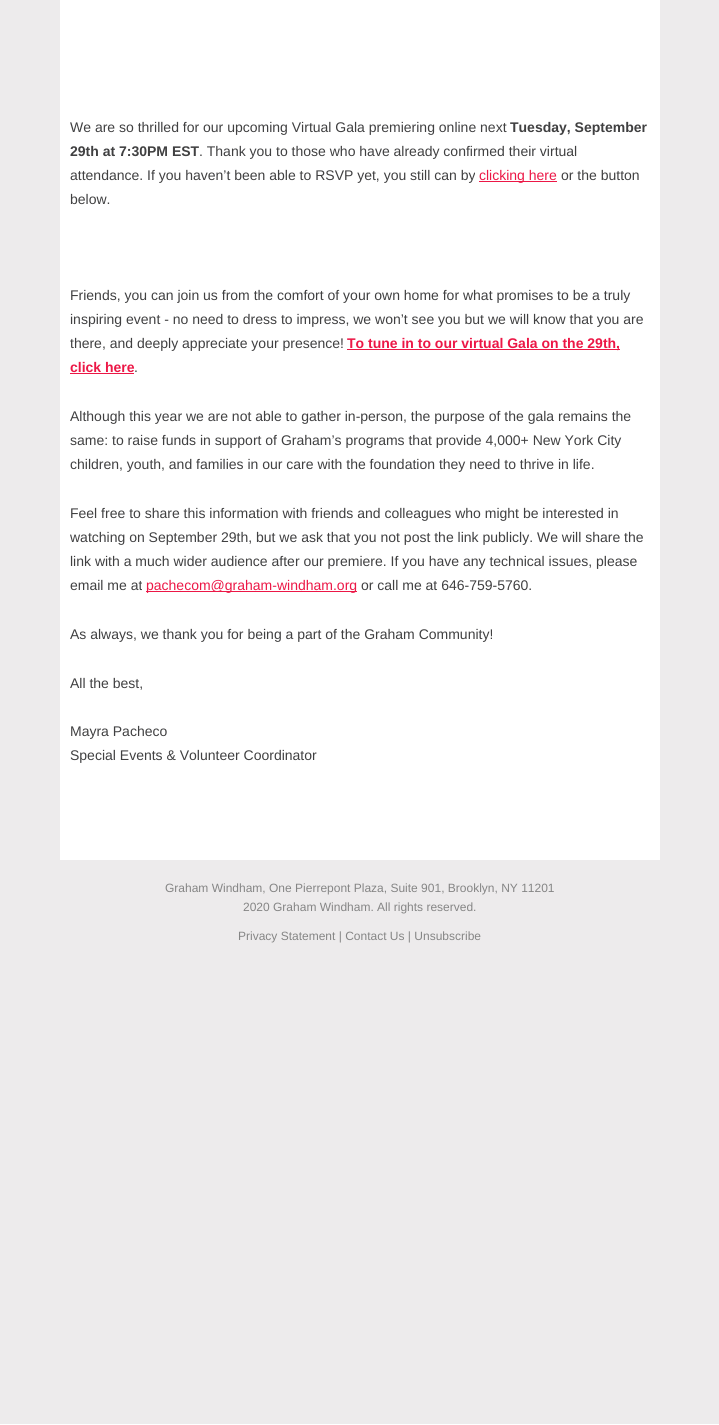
#include <cairo/cairo.h>
#include <math.h>
#include <stddef.h>


static void draw(cairo_t *cr) {
  cairo_set_source_rgb(cr, 1, 1, 1);
  cairo_paint(cr);
  cairo_set_source_rgb(cr, 237 / 255.0, 235 / 255.0, 236 / 255.0);
  cairo_rectangle(cr, 0, 0, 719, 1424);
  cairo_fill(cr);
  cairo_set_source_rgb(cr, 1, 1, 1);
  cairo_rectangle(cr, 60, 0, 600, 860);
  cairo_fill(cr);
  cairo_set_source_rgb(cr, 236 / 255.0, 23 / 255.0, 70 / 255.0);
  cairo_rectangle(cr, 479, 181, 78, 1);
  cairo_fill(cr);
  cairo_rectangle(cr, 347, 349, 273, 1);
  cairo_fill(cr);
  cairo_rectangle(cr, 70, 373, 64, 1);
  cairo_fill(cr);
  cairo_rectangle(cr, 146, 591, 211, 1);
  cairo_fill(cr);
  cairo_select_font_face(cr, "Liberation Sans", CAIRO_FONT_SLANT_NORMAL, CAIRO_FONT_WEIGHT_NORMAL);
  cairo_set_font_size(cr, 14);
  cairo_set_source_rgb(cr, 64 / 255.0, 64 / 255.0, 65 / 255.0);
  cairo_move_to(cr, 70, 132);
  cairo_show_text(cr, "We are so thrilled for our upcoming Virtual Gala premiering online next");
  cairo_select_font_face(cr, "Liberation Sans", CAIRO_FONT_SLANT_NORMAL, CAIRO_FONT_WEIGHT_BOLD);
  cairo_move_to(cr, 510, 132);
  cairo_show_text(cr, "Tuesday, September");
  cairo_move_to(cr, 70, 156);
  cairo_show_text(cr, "29th at 7:30PM EST");
  cairo_select_font_face(cr, "Liberation Sans", CAIRO_FONT_SLANT_NORMAL, CAIRO_FONT_WEIGHT_NORMAL);
  cairo_move_to(cr, 199, 156);
  cairo_show_text(cr, ". Thank you to those who have already confirmed their virtual");
  cairo_move_to(cr, 70, 180);
  cairo_show_text(cr, "attendance. If you haven’t been able to RSVP yet, you still can by");
  cairo_set_source_rgb(cr, 236 / 255.0, 23 / 255.0, 70 / 255.0);
  cairo_move_to(cr, 479, 180);
  cairo_show_text(cr, "clicking here");
  cairo_set_source_rgb(cr, 64 / 255.0, 64 / 255.0, 65 / 255.0);
  cairo_move_to(cr, 561, 180);
  cairo_show_text(cr, "or the button");
  cairo_move_to(cr, 70, 204);
  cairo_show_text(cr, "below.");
  cairo_move_to(cr, 70, 300);
  cairo_show_text(cr, "Friends, you can join us from the comfort of your own home for what promises to be a truly");
  cairo_move_to(cr, 70, 324);
  cairo_show_text(cr, "inspiring event - no need to dress to impress, we won’t see you but we will know that you are");
  cairo_move_to(cr, 70, 348);
  cairo_show_text(cr, "there, and deeply appreciate your presence!");
  cairo_select_font_face(cr, "Liberation Sans", CAIRO_FONT_SLANT_NORMAL, CAIRO_FONT_WEIGHT_BOLD);
  cairo_set_source_rgb(cr, 236 / 255.0, 23 / 255.0, 70 / 255.0);
  cairo_move_to(cr, 347, 348);
  cairo_show_text(cr, "To tune in to our virtual Gala on the 29th,");
  cairo_move_to(cr, 70, 372);
  cairo_show_text(cr, "click here");
  cairo_select_font_face(cr, "Liberation Sans", CAIRO_FONT_SLANT_NORMAL, CAIRO_FONT_WEIGHT_NORMAL);
  cairo_set_source_rgb(cr, 64 / 255.0, 64 / 255.0, 65 / 255.0);
  cairo_move_to(cr, 134, 372);
  cairo_show_text(cr, ".");
  cairo_move_to(cr, 70, 421);
  cairo_show_text(cr, "Although this year we are not able to gather in-person, the purpose of the gala remains the");
  cairo_move_to(cr, 70, 445);
  cairo_show_text(cr, "same: to raise funds in support of Graham’s programs that provide 4,000+ New York City");
  cairo_move_to(cr, 70, 469);
  cairo_show_text(cr, "children, youth, and families in our care with the foundation they need to thrive in life.");
  cairo_move_to(cr, 70, 518);
  cairo_show_text(cr, "Feel free to share this information with friends and colleagues who might be interested in");
  cairo_move_to(cr, 70, 542);
  cairo_show_text(cr, "watching on September 29th, but we ask that you not post the link publicly. We will share the");
  cairo_move_to(cr, 70, 566);
  cairo_show_text(cr, "link with a much wider audience after our premiere. If you have any technical issues, please");
  cairo_move_to(cr, 70, 590);
  cairo_show_text(cr, "email me at");
  cairo_set_source_rgb(cr, 236 / 255.0, 23 / 255.0, 70 / 255.0);
  cairo_move_to(cr, 146, 590);
  cairo_show_text(cr, "pachecom@graham-windham.org");
  cairo_set_source_rgb(cr, 64 / 255.0, 64 / 255.0, 65 / 255.0);
  cairo_move_to(cr, 361, 590);
  cairo_show_text(cr, "or call me at 646-759-5760.");
  cairo_move_to(cr, 70, 639);
  cairo_show_text(cr, "As always, we thank you for being a part of the Graham Community!");
  cairo_move_to(cr, 70, 688);
  cairo_show_text(cr, "All the best,");
  cairo_move_to(cr, 70, 736);
  cairo_show_text(cr, "Mayra Pacheco");
  cairo_move_to(cr, 70, 760);
  cairo_show_text(cr, "Special Events & Volunteer Coordinator");
  cairo_set_font_size(cr, 12);
  cairo_set_source_rgb(cr, 133 / 255.0, 133 / 255.0, 133 / 255.0);
  cairo_move_to(cr, 165, 892);
  cairo_show_text(cr, "Graham Windham, One Pierrepont Plaza, Suite 901, Brooklyn, NY 11201");
  cairo_move_to(cr, 243, 911);
  cairo_show_text(cr, "2020 Graham Windham. All rights reserved.");
  cairo_move_to(cr, 238, 940);
  cairo_show_text(cr, "Privacy Statement | Contact Us | Unsubscribe");
}

int main(void) {
  cairo_surface_t *surface = cairo_image_surface_create(CAIRO_FORMAT_RGB24, 719, 1425);
  cairo_t *cr = cairo_create(surface);
  cairo_font_options_t *options = cairo_font_options_create();
  cairo_font_options_set_hint_metrics(options, CAIRO_HINT_METRICS_OFF);
  cairo_font_options_set_hint_style(options, CAIRO_HINT_STYLE_NONE);
  cairo_set_font_options(cr, options);
  cairo_set_miter_limit(cr, 4);
  draw(cr);
  cairo_surface_write_to_png(surface, "out.png");
  cairo_font_options_destroy(options);
  cairo_destroy(cr);
  cairo_surface_destroy(surface);
  return 0;
}
